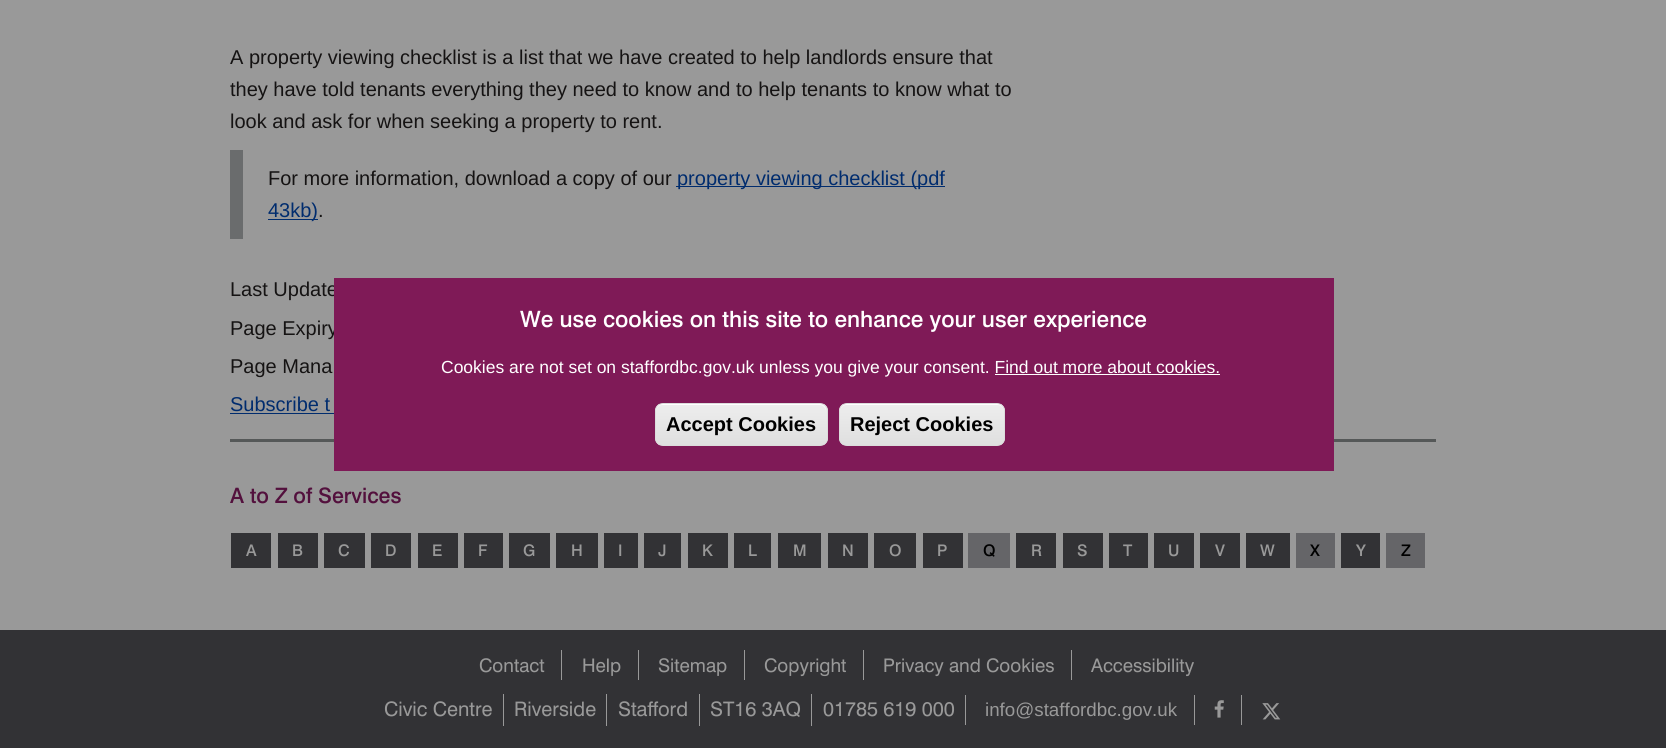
#include <cairo/cairo.h>
#include <math.h>
#include <stddef.h>


static void rounded_rect(cairo_t *cr, double x, double y, double w, double h, double r) {
  cairo_new_sub_path(cr);
  cairo_arc(cr, x + w - r, y + h - r, r, 0, M_PI / 2);
  cairo_arc(cr, x + r, y + h - r, r, M_PI / 2, M_PI);
  cairo_arc(cr, x + r, y + r, r, M_PI, 1.5 * M_PI);
  cairo_arc(cr, x + w - r, y + r, r, 1.5 * M_PI, 2 * M_PI);
  cairo_close_path(cr);
}

static void draw_image(cairo_t *cr, const char *path, double x, double y, double w, double h) {
  cairo_surface_t *image = cairo_image_surface_create_from_png(path);
  cairo_save(cr);
  cairo_set_source_surface(cr, image, x, y);
  cairo_rectangle(cr, x, y, w, h);
  cairo_fill(cr);
  cairo_restore(cr);
  cairo_surface_destroy(image);
}

static void draw(cairo_t *cr) {
  cairo_pattern_t *gradient;
  cairo_set_source_rgb(cr, 153 / 255.0, 153 / 255.0, 153 / 255.0);
  cairo_paint(cr);
  cairo_set_source_rgb(cr, 106 / 255.0, 108 / 255.0, 109 / 255.0);
  cairo_rectangle(cr, 230, 150, 13, 89);
  cairo_fill(cr);
  cairo_set_source_rgb(cr, 0, 44 / 255.0, 110 / 255.0);
  cairo_rectangle(cr, 676, 186, 269, 1);
  cairo_fill(cr);
  cairo_rectangle(cr, 268, 219, 50, 1);
  cairo_fill(cr);
  cairo_rectangle(cr, 230, 413, 104, 1);
  cairo_fill(cr);
  cairo_set_source_rgb(cr, 85 / 255.0, 88 / 255.0, 88 / 255.0);
  cairo_rectangle(cr, 230, 439, 1206, 3);
  cairo_fill(cr);
  cairo_set_source_rgb(cr, 50 / 255.0, 50 / 255.0, 53 / 255.0);
  cairo_rectangle(cr, 231, 533, 40, 35);
  cairo_fill(cr);
  cairo_rectangle(cr, 278, 533, 40, 35);
  cairo_fill(cr);
  cairo_rectangle(cr, 324, 533, 41, 35);
  cairo_fill(cr);
  cairo_rectangle(cr, 371, 533, 40, 35);
  cairo_fill(cr);
  cairo_rectangle(cr, 418, 533, 40, 35);
  cairo_fill(cr);
  cairo_rectangle(cr, 464, 533, 39, 35);
  cairo_fill(cr);
  cairo_rectangle(cr, 509, 533, 41, 35);
  cairo_fill(cr);
  cairo_rectangle(cr, 556, 533, 42, 35);
  cairo_fill(cr);
  cairo_rectangle(cr, 604, 533, 34, 35);
  cairo_fill(cr);
  cairo_rectangle(cr, 644, 533, 37, 35);
  cairo_fill(cr);
  cairo_rectangle(cr, 688, 533, 40, 35);
  cairo_fill(cr);
  cairo_rectangle(cr, 734, 533, 37, 35);
  cairo_fill(cr);
  cairo_rectangle(cr, 778, 533, 43, 35);
  cairo_fill(cr);
  cairo_rectangle(cr, 828, 533, 40, 35);
  cairo_fill(cr);
  cairo_rectangle(cr, 874, 533, 42, 35);
  cairo_fill(cr);
  cairo_rectangle(cr, 923, 533, 40, 35);
  cairo_fill(cr);
  cairo_set_source_rgb(cr, 101 / 255.0, 101 / 255.0, 104 / 255.0);
  cairo_rectangle(cr, 968, 533, 42, 35);
  cairo_fill(cr);
  cairo_set_source_rgb(cr, 50 / 255.0, 50 / 255.0, 53 / 255.0);
  cairo_rectangle(cr, 1016, 533, 40, 35);
  cairo_fill(cr);
  cairo_rectangle(cr, 1063, 533, 40, 35);
  cairo_fill(cr);
  cairo_rectangle(cr, 1109, 533, 39, 35);
  cairo_fill(cr);
  cairo_rectangle(cr, 1154, 533, 40, 35);
  cairo_fill(cr);
  cairo_rectangle(cr, 1200, 533, 40, 35);
  cairo_fill(cr);
  cairo_rectangle(cr, 1246, 533, 44, 35);
  cairo_fill(cr);
  cairo_set_source_rgb(cr, 101 / 255.0, 101 / 255.0, 104 / 255.0);
  cairo_rectangle(cr, 1296, 533, 39, 35);
  cairo_fill(cr);
  cairo_set_source_rgb(cr, 50 / 255.0, 50 / 255.0, 53 / 255.0);
  cairo_rectangle(cr, 1341, 533, 39, 35);
  cairo_fill(cr);
  cairo_set_source_rgb(cr, 101 / 255.0, 101 / 255.0, 104 / 255.0);
  cairo_rectangle(cr, 1386, 533, 39, 35);
  cairo_fill(cr);
  cairo_set_source_rgb(cr, 50 / 255.0, 50 / 255.0, 53 / 255.0);
  cairo_rectangle(cr, 0, 630, 1666, 118);
  cairo_fill(cr);
  cairo_set_source_rgb(cr, 153 / 255.0, 153 / 255.0, 153 / 255.0);
  cairo_rectangle(cr, 561, 650, 1, 30);
  cairo_fill(cr);
  cairo_rectangle(cr, 638, 650, 1, 30);
  cairo_fill(cr);
  cairo_rectangle(cr, 744, 650, 1, 30);
  cairo_fill(cr);
  cairo_rectangle(cr, 863, 650, 1, 30);
  cairo_fill(cr);
  cairo_rectangle(cr, 1071, 650, 1, 30);
  cairo_fill(cr);
  cairo_rectangle(cr, 503, 694, 1, 32);
  cairo_fill(cr);
  cairo_rectangle(cr, 606, 694, 1, 32);
  cairo_fill(cr);
  cairo_rectangle(cr, 699, 694, 1, 32);
  cairo_fill(cr);
  cairo_rectangle(cr, 811, 694, 1, 32);
  cairo_fill(cr);
  cairo_rectangle(cr, 965, 695, 1, 30);
  cairo_fill(cr);
  cairo_rectangle(cr, 1194, 695, 1, 30);
  cairo_fill(cr);
  draw_image(cr, "images/1.png", 1214, 700, 10, 18);
  cairo_rectangle(cr, 1241, 695, 1, 30);
  cairo_fill(cr);
  draw_image(cr, "images/2.png", 1262, 703, 19, 17);
  cairo_select_font_face(cr, "Liberation Sans", CAIRO_FONT_SLANT_NORMAL, CAIRO_FONT_WEIGHT_NORMAL);
  cairo_set_font_size(cr, 20);
  cairo_set_source_rgb(cr, 21 / 255.0, 19 / 255.0, 19 / 255.0);
  cairo_move_to(cr, 230, 64);
  cairo_show_text(cr, "A property viewing checklist is a list that we have created to help landlords ensure that");
  cairo_move_to(cr, 230, 96);
  cairo_show_text(cr, "they have told tenants everything they need to know and to help tenants to know what to");
  cairo_move_to(cr, 230, 128);
  cairo_show_text(cr, "look and ask for when seeking a property to rent.");
  cairo_move_to(cr, 268, 185);
  cairo_show_text(cr, "For more information, download a copy of our");
  cairo_set_source_rgb(cr, 0, 44 / 255.0, 110 / 255.0);
  cairo_move_to(cr, 677, 185);
  cairo_show_text(cr, "property viewing checklist (pdf");
  cairo_move_to(cr, 268, 217);
  cairo_show_text(cr, "43kb)");
  cairo_set_source_rgb(cr, 21 / 255.0, 19 / 255.0, 19 / 255.0);
  cairo_move_to(cr, 318, 217);
  cairo_show_text(cr, ".");
  cairo_move_to(cr, 230, 296);
  cairo_show_text(cr, "Last Update");
  cairo_move_to(cr, 230, 335);
  cairo_show_text(cr, "Page Expiry");
  cairo_move_to(cr, 230, 373);
  cairo_show_text(cr, "Page Mana");
  cairo_set_source_rgb(cr, 0, 44 / 255.0, 110 / 255.0);
  cairo_move_to(cr, 230, 411);
  cairo_show_text(cr, "Subscribe t");
  cairo_select_font_face(cr, "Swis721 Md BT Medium", CAIRO_FONT_SLANT_NORMAL, CAIRO_FONT_WEIGHT_NORMAL);
  cairo_set_font_size(cr, 21.25);
  cairo_set_source_rgb(cr, 83 / 255.0, 16 / 255.0, 61 / 255.0);
  cairo_move_to(cr, 230, 503);
  cairo_show_text(cr, "A to Z of Services");
  cairo_set_font_size(cr, 16);
  cairo_set_source_rgb(cr, 153 / 255.0, 153 / 255.0, 153 / 255.0);
  cairo_move_to(cr, 246, 556);
  cairo_show_text(cr, "A");
  cairo_move_to(cr, 292, 556);
  cairo_show_text(cr, "B");
  cairo_move_to(cr, 338, 556);
  cairo_show_text(cr, "C");
  cairo_move_to(cr, 385, 556);
  cairo_show_text(cr, "D");
  cairo_move_to(cr, 432, 556);
  cairo_show_text(cr, "E");
  cairo_move_to(cr, 478, 556);
  cairo_show_text(cr, "F");
  cairo_move_to(cr, 523, 556);
  cairo_show_text(cr, "G");
  cairo_move_to(cr, 571, 556);
  cairo_show_text(cr, "H");
  cairo_move_to(cr, 618, 556);
  cairo_show_text(cr, "I");
  cairo_move_to(cr, 658, 556);
  cairo_show_text(cr, "J");
  cairo_move_to(cr, 702, 556);
  cairo_show_text(cr, "K");
  cairo_move_to(cr, 748, 556);
  cairo_show_text(cr, "L");
  cairo_move_to(cr, 793, 556);
  cairo_show_text(cr, "M");
  cairo_move_to(cr, 842, 556);
  cairo_show_text(cr, "N");
  cairo_move_to(cr, 889, 556);
  cairo_show_text(cr, "O");
  cairo_move_to(cr, 937, 556);
  cairo_show_text(cr, "P");
  cairo_set_source_rgb(cr, 0, 0, 0);
  cairo_move_to(cr, 983, 556);
  cairo_show_text(cr, "Q");
  cairo_set_source_rgb(cr, 153 / 255.0, 153 / 255.0, 153 / 255.0);
  cairo_move_to(cr, 1031, 556);
  cairo_show_text(cr, "R");
  cairo_move_to(cr, 1077, 556);
  cairo_show_text(cr, "S");
  cairo_move_to(cr, 1123, 556);
  cairo_show_text(cr, "T");
  cairo_move_to(cr, 1168, 556);
  cairo_show_text(cr, "U");
  cairo_move_to(cr, 1215, 556);
  cairo_show_text(cr, "V");
  cairo_move_to(cr, 1260, 556);
  cairo_show_text(cr, "W");
  cairo_set_source_rgb(cr, 0, 0, 0);
  cairo_move_to(cr, 1310, 556);
  cairo_show_text(cr, "X");
  cairo_set_source_rgb(cr, 153 / 255.0, 153 / 255.0, 153 / 255.0);
  cairo_move_to(cr, 1356, 556);
  cairo_show_text(cr, "Y");
  cairo_set_source_rgb(cr, 0, 0, 0);
  cairo_move_to(cr, 1401, 556);
  cairo_show_text(cr, "Z");
  cairo_select_font_face(cr, "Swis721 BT", CAIRO_FONT_SLANT_NORMAL, CAIRO_FONT_WEIGHT_NORMAL);
  cairo_set_font_size(cr, 18.75);
  cairo_set_source_rgb(cr, 153 / 255.0, 153 / 255.0, 153 / 255.0);
  cairo_move_to(cr, 479, 672);
  cairo_show_text(cr, "Contact");
  cairo_move_to(cr, 582, 672);
  cairo_show_text(cr, "Help");
  cairo_move_to(cr, 658, 672);
  cairo_show_text(cr, "Sitemap");
  cairo_move_to(cr, 764, 672);
  cairo_show_text(cr, "Copyright");
  cairo_move_to(cr, 883, 672);
  cairo_show_text(cr, "Privacy and Cookies");
  cairo_move_to(cr, 1091, 672);
  cairo_show_text(cr, "Accessibility");
  cairo_set_font_size(cr, 20);
  cairo_move_to(cr, 384, 716);
  cairo_show_text(cr, "Civic Centre");
  cairo_move_to(cr, 514, 716);
  cairo_show_text(cr, "Riverside");
  cairo_move_to(cr, 618, 716);
  cairo_show_text(cr, "Stafford");
  cairo_move_to(cr, 710, 716);
  cairo_show_text(cr, "ST16 3AQ");
  cairo_move_to(cr, 823, 716);
  cairo_show_text(cr, "01785 619 000");
  cairo_select_font_face(cr, "Liberation Sans", CAIRO_FONT_SLANT_NORMAL, CAIRO_FONT_WEIGHT_NORMAL);
  cairo_set_font_size(cr, 18.75);
  cairo_move_to(cr, 985, 716);
  cairo_show_text(cr, "info@staffordbc.gov.uk");
  cairo_set_source_rgb(cr, 127 / 255.0, 26 / 255.0, 87 / 255.0);
  cairo_rectangle(cr, 334, 278, 1000, 193);
  cairo_fill(cr);
  cairo_select_font_face(cr, "Swis721 Md BT Medium", CAIRO_FONT_SLANT_NORMAL, CAIRO_FONT_WEIGHT_NORMAL);
  cairo_set_font_size(cr, 22.5);
  cairo_set_source_rgb(cr, 1, 1, 1);
  cairo_move_to(cr, 520, 327);
  cairo_show_text(cr, "We use cookies on this site to enhance your user experience");
  cairo_select_font_face(cr, "Liberation Sans", CAIRO_FONT_SLANT_NORMAL, CAIRO_FONT_WEIGHT_NORMAL);
  cairo_set_font_size(cr, 17.5);
  cairo_move_to(cr, 441, 373);
  cairo_show_text(cr, "Cookies are not set on staffordbc.gov.uk unless you give your consent. Find out more about cookies.");
  cairo_rectangle(cr, 995, 374, 225, 1);
  cairo_fill(cr);
  cairo_save(cr);
  rounded_rect(cr, 655, 403, 173, 43, 8);
  cairo_clip(cr);
  gradient = cairo_pattern_create_linear(741, 404, 741, 445);
  cairo_pattern_add_color_stop_rgba(gradient, 0.05, 237 / 255.0, 237 / 255.0, 237 / 255.0, 1);
  cairo_pattern_add_color_stop_rgba(gradient, 1, 223 / 255.0, 223 / 255.0, 223 / 255.0, 1);
  cairo_set_source(cr, gradient);
  cairo_pattern_destroy(gradient);
  cairo_rectangle(cr, 655, 404, 173, 41);
  cairo_fill(cr);
  cairo_restore(cr);
  cairo_new_path(cr);
  cairo_move_to(cr, 662, 405);
  cairo_line_to(cr, 820, 405);
  cairo_curve_to(cr, 823, 405, 826, 408, 826, 411);
  cairo_line_to(cr, 826, 410);
  cairo_curve_to(cr, 826, 407, 823, 404, 820, 404);
  cairo_line_to(cr, 662, 404);
  cairo_curve_to(cr, 659, 404, 656, 407, 656, 410);
  cairo_line_to(cr, 656, 411);
  cairo_curve_to(cr, 656, 408, 659, 405, 662, 405);
  cairo_close_path(cr);
  cairo_fill(cr);
  rounded_rect(cr, 655.5, 403.5, 172, 42, 7.5);
  cairo_set_source_rgb(cr, 220 / 255.0, 220 / 255.0, 220 / 255.0);
  cairo_set_line_width(cr, 1);
  cairo_stroke(cr);
  cairo_select_font_face(cr, "Liberation Sans", CAIRO_FONT_SLANT_NORMAL, CAIRO_FONT_WEIGHT_BOLD);
  cairo_set_font_size(cr, 20);
  cairo_set_source_rgb(cr, 0, 0, 0);
  cairo_move_to(cr, 666, 431);
  cairo_show_text(cr, "Accept Cookies");
  cairo_save(cr);
  rounded_rect(cr, 839, 403, 166, 43, 8);
  cairo_clip(cr);
  gradient = cairo_pattern_create_linear(922, 404, 922, 445);
  cairo_pattern_add_color_stop_rgba(gradient, 0.05, 237 / 255.0, 237 / 255.0, 237 / 255.0, 1);
  cairo_pattern_add_color_stop_rgba(gradient, 1, 223 / 255.0, 223 / 255.0, 223 / 255.0, 1);
  cairo_set_source(cr, gradient);
  cairo_pattern_destroy(gradient);
  cairo_rectangle(cr, 839, 404, 166, 41);
  cairo_fill(cr);
  cairo_restore(cr);
  cairo_set_source_rgb(cr, 1, 1, 1);
  cairo_new_path(cr);
  cairo_move_to(cr, 846, 405);
  cairo_line_to(cr, 998, 405);
  cairo_curve_to(cr, 1001, 405, 1004, 408, 1004, 411);
  cairo_line_to(cr, 1004, 410);
  cairo_curve_to(cr, 1004, 407, 1001, 404, 998, 404);
  cairo_line_to(cr, 846, 404);
  cairo_curve_to(cr, 843, 404, 840, 407, 840, 410);
  cairo_line_to(cr, 840, 411);
  cairo_curve_to(cr, 840, 408, 843, 405, 846, 405);
  cairo_close_path(cr);
  cairo_fill(cr);
  rounded_rect(cr, 839.5, 403.5, 165, 42, 7.5);
  cairo_set_source_rgb(cr, 220 / 255.0, 220 / 255.0, 220 / 255.0);
  cairo_stroke(cr);
  cairo_set_source_rgb(cr, 0, 0, 0);
  cairo_move_to(cr, 850, 431);
  cairo_show_text(cr, "Reject Cookies");
}

int main(void) {
  cairo_surface_t *surface = cairo_image_surface_create(CAIRO_FORMAT_RGB24, 1666, 748);
  cairo_t *cr = cairo_create(surface);
  cairo_font_options_t *options = cairo_font_options_create();
  cairo_font_options_set_hint_metrics(options, CAIRO_HINT_METRICS_OFF);
  cairo_font_options_set_hint_style(options, CAIRO_HINT_STYLE_NONE);
  cairo_set_font_options(cr, options);
  cairo_set_miter_limit(cr, 4);
  draw(cr);
  cairo_surface_write_to_png(surface, "out.png");
  cairo_font_options_destroy(options);
  cairo_destroy(cr);
  cairo_surface_destroy(surface);
  return 0;
}
